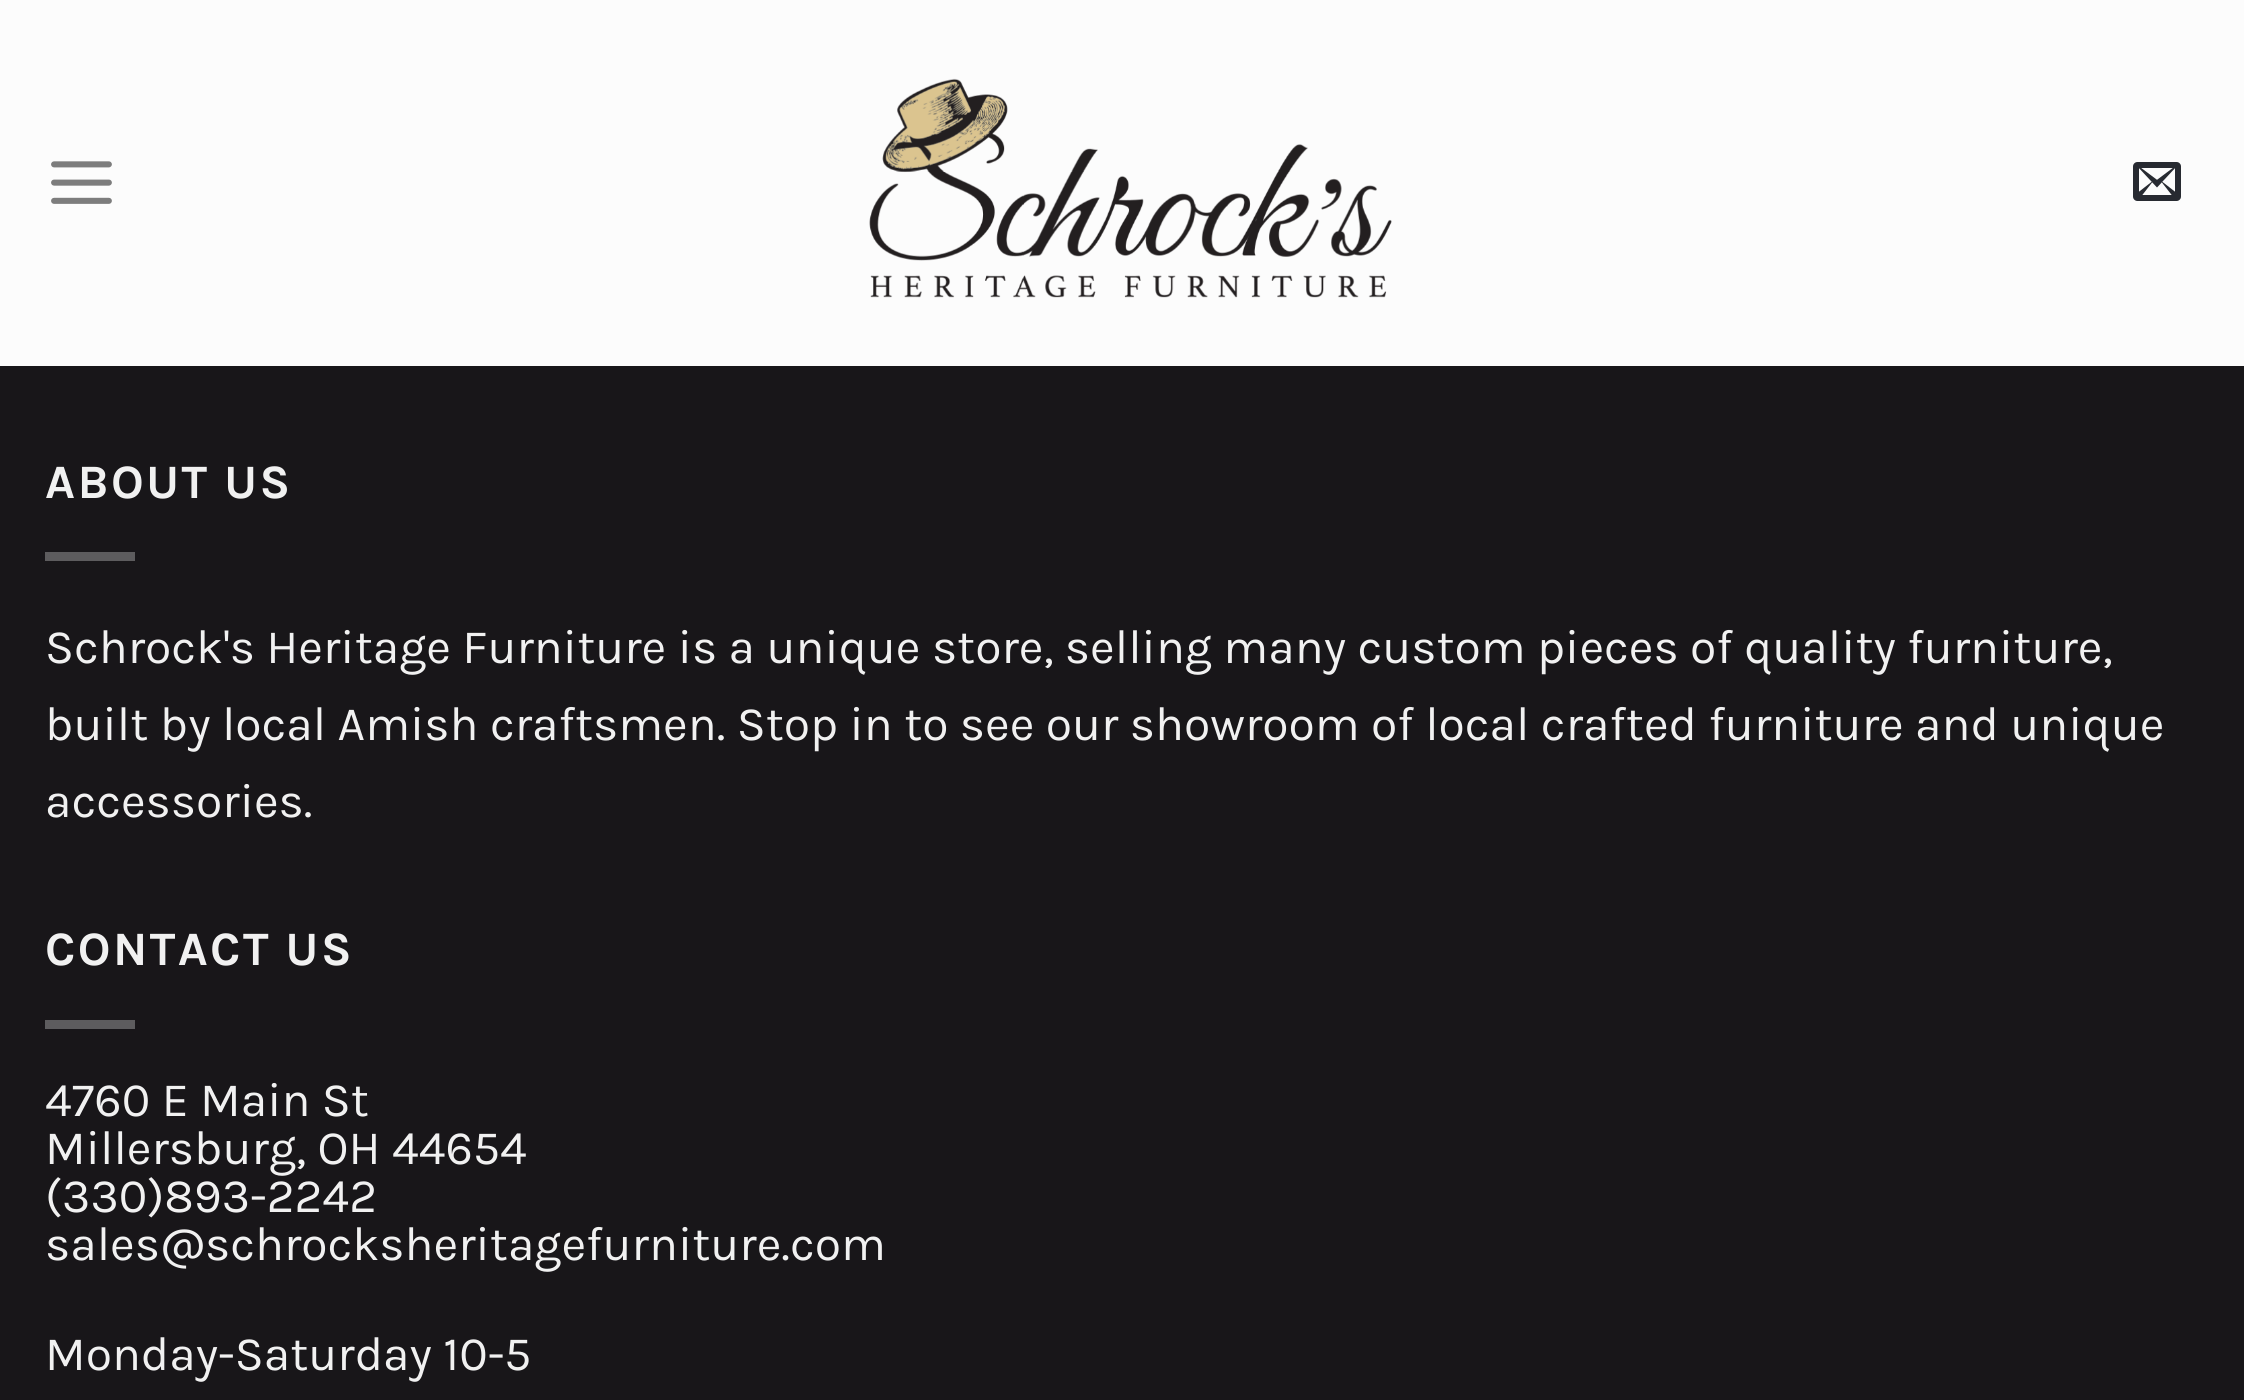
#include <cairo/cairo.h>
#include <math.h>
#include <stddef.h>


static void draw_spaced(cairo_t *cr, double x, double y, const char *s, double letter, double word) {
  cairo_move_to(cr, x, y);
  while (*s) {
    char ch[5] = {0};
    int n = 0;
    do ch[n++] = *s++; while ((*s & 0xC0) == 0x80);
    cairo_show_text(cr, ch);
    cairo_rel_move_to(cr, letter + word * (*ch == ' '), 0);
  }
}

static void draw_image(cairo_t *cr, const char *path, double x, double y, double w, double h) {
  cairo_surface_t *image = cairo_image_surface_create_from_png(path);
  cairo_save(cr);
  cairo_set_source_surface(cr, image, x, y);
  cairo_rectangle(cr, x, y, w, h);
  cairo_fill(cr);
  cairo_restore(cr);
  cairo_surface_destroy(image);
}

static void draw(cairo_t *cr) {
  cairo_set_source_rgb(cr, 24 / 255.0, 22 / 255.0, 25 / 255.0);
  cairo_paint(cr);
  cairo_set_source_rgb(cr, 252 / 255.0, 252 / 255.0, 252 / 255.0);
  cairo_rectangle(cr, 0, 0, 2244, 366);
  cairo_fill(cr);
  draw_image(cr, "images/1.png", 51, 161, 61, 43);
  draw_image(cr, "images/2.png", 869, 78, 523, 220);
  draw_image(cr, "images/3.png", 2133, 162, 48, 39);
  cairo_set_source_rgb(cr, 93 / 255.0, 92 / 255.0, 94 / 255.0);
  cairo_rectangle(cr, 45, 552, 90, 9);
  cairo_fill(cr);
  cairo_rectangle(cr, 45, 1020, 90, 9);
  cairo_fill(cr);
  cairo_select_font_face(cr, "Karla", CAIRO_FONT_SLANT_NORMAL, CAIRO_FONT_WEIGHT_BOLD);
  cairo_set_font_size(cr, 48);
  cairo_set_source_rgb(cr, 241 / 255.0, 241 / 255.0, 241 / 255.0);
  draw_spaced(cr, 45, 498, "ABOUT US", 2.4, 0);
  cairo_select_font_face(cr, "Karla", CAIRO_FONT_SLANT_NORMAL, CAIRO_FONT_WEIGHT_NORMAL);
  cairo_move_to(cr, 45, 663);
  cairo_show_text(cr, "Schrock's Heritage Furniture is a unique store, selling many custom pieces of quality furniture,");
  cairo_move_to(cr, 45, 740);
  cairo_show_text(cr, "built by local Amish craftsmen. Stop in to see our showroom of local crafted furniture and unique");
  cairo_move_to(cr, 45, 817);
  cairo_show_text(cr, "accessories.");
  cairo_select_font_face(cr, "Karla", CAIRO_FONT_SLANT_NORMAL, CAIRO_FONT_WEIGHT_BOLD);
  draw_spaced(cr, 45, 965, "CONTACT US", 2.4, 0);
  cairo_select_font_face(cr, "Karla", CAIRO_FONT_SLANT_NORMAL, CAIRO_FONT_WEIGHT_NORMAL);
  cairo_move_to(cr, 45, 1116);
  cairo_show_text(cr, "4760 E Main St");
  cairo_move_to(cr, 45, 1164);
  cairo_show_text(cr, "Millersburg, OH 44654");
  cairo_move_to(cr, 45, 1212);
  cairo_show_text(cr, "(330)893-2242");
  cairo_move_to(cr, 45, 1260);
  cairo_show_text(cr, "sales@schrocksheritagefurniture.com");
  cairo_move_to(cr, 45, 1370);
  cairo_show_text(cr, "Monday-Saturday 10-5");
}

int main(void) {
  cairo_surface_t *surface = cairo_image_surface_create(CAIRO_FORMAT_RGB24, 2244, 1400);
  cairo_t *cr = cairo_create(surface);
  cairo_font_options_t *options = cairo_font_options_create();
  cairo_font_options_set_hint_metrics(options, CAIRO_HINT_METRICS_OFF);
  cairo_font_options_set_hint_style(options, CAIRO_HINT_STYLE_NONE);
  cairo_set_font_options(cr, options);
  cairo_set_miter_limit(cr, 4);
  draw(cr);
  cairo_surface_write_to_png(surface, "out.png");
  cairo_font_options_destroy(options);
  cairo_destroy(cr);
  cairo_surface_destroy(surface);
  return 0;
}
